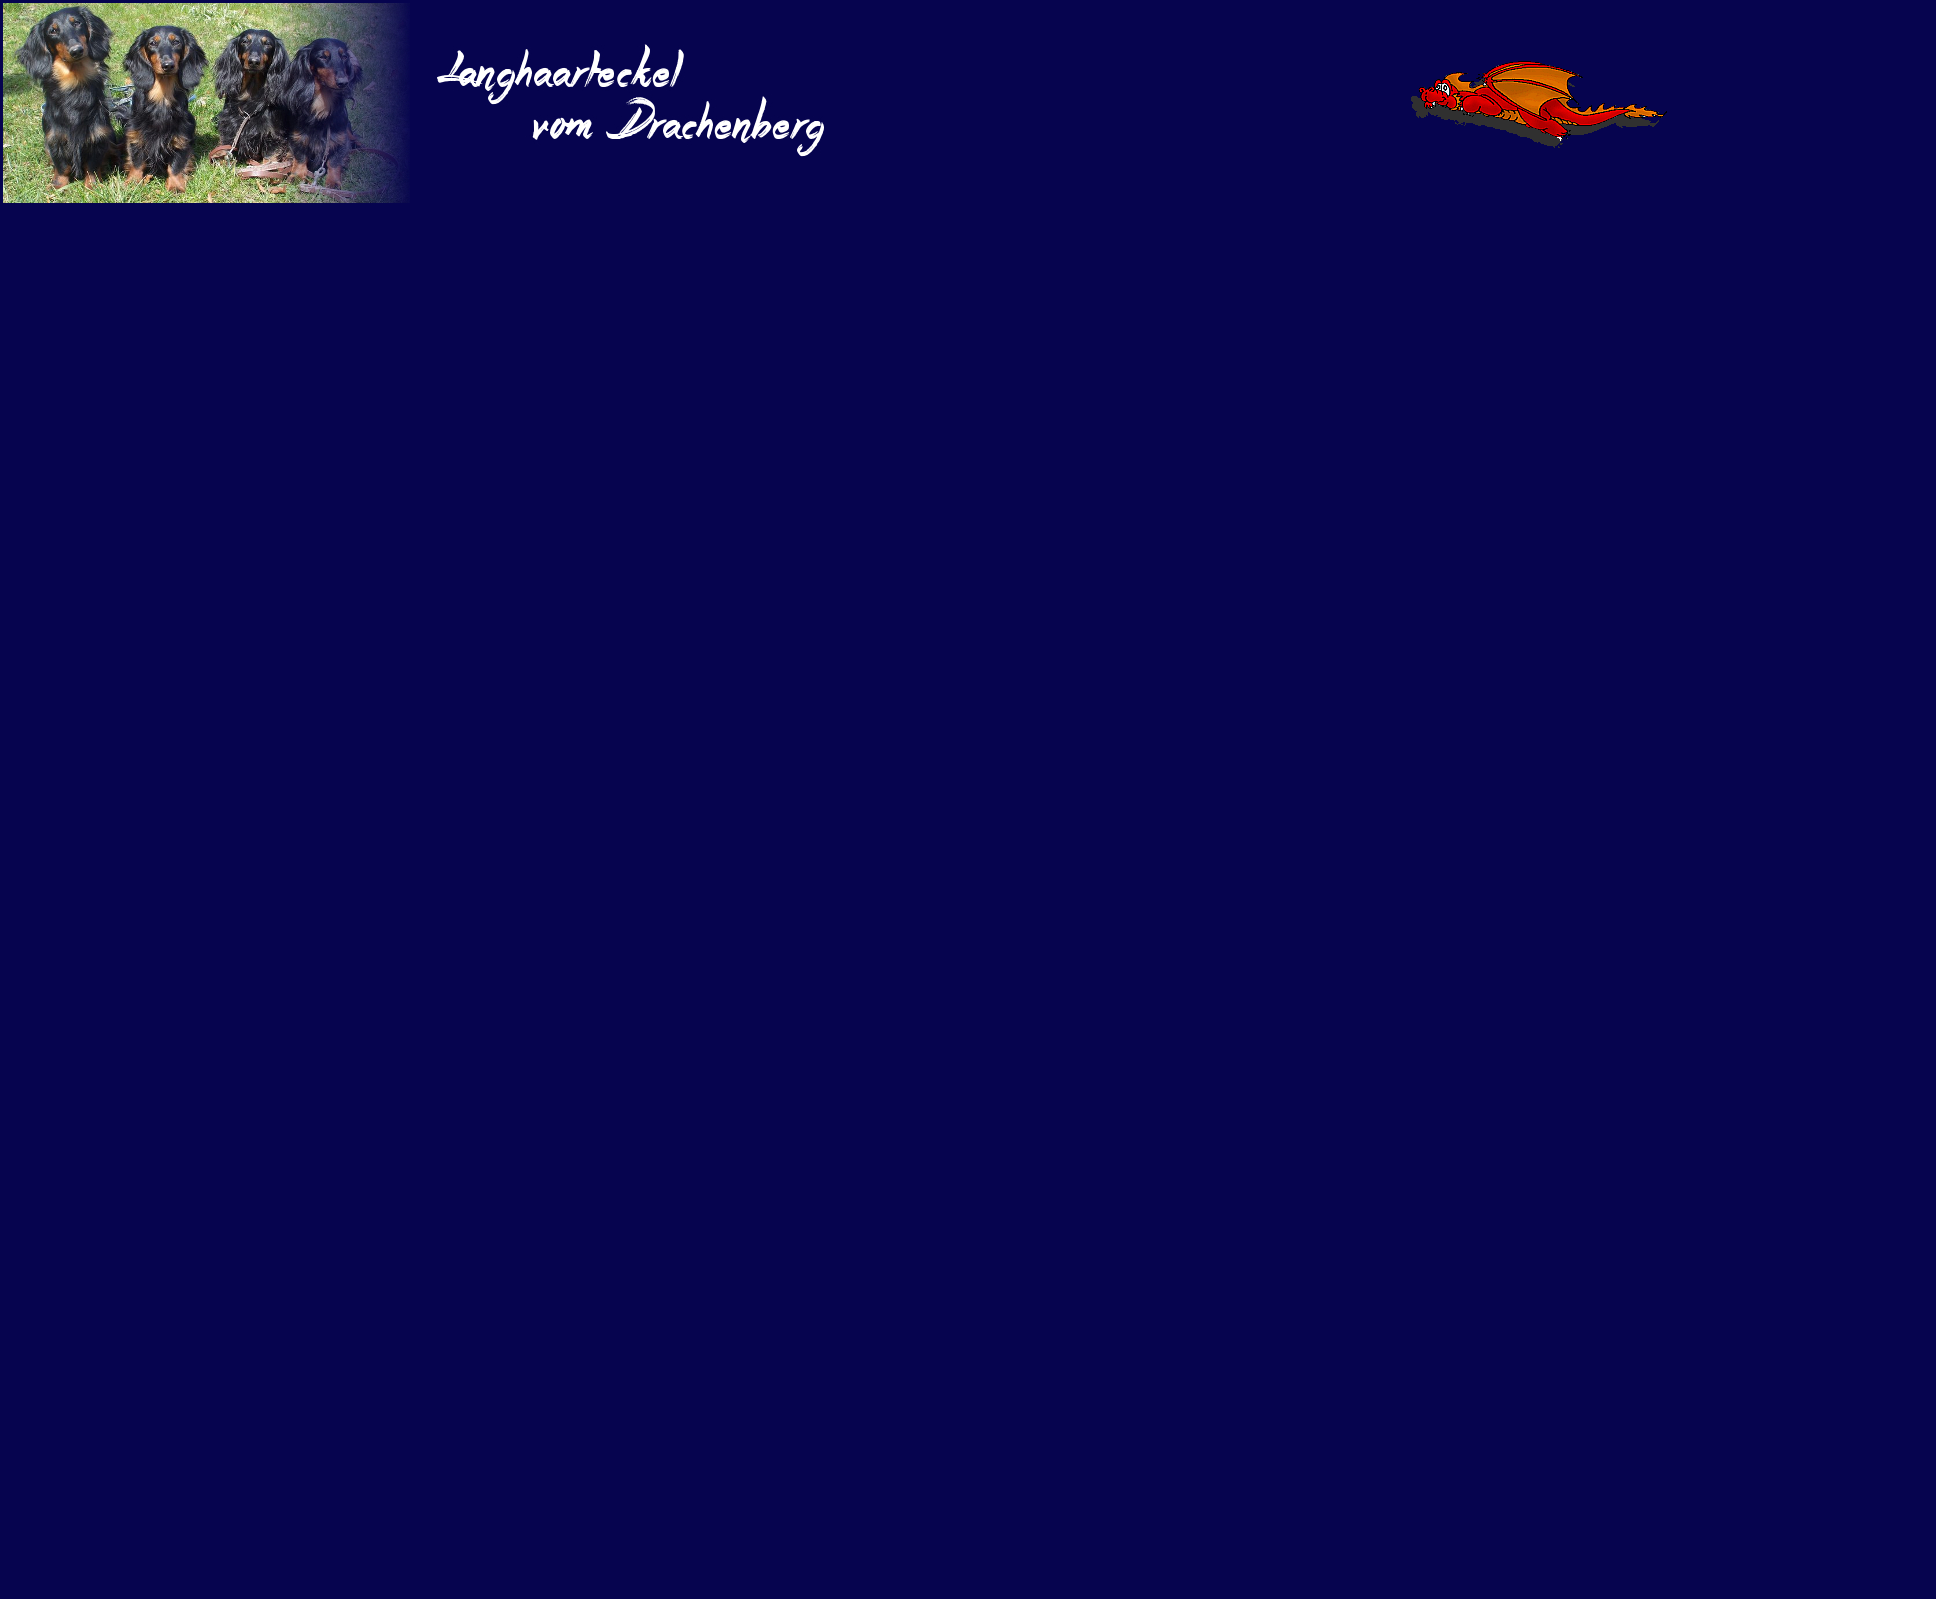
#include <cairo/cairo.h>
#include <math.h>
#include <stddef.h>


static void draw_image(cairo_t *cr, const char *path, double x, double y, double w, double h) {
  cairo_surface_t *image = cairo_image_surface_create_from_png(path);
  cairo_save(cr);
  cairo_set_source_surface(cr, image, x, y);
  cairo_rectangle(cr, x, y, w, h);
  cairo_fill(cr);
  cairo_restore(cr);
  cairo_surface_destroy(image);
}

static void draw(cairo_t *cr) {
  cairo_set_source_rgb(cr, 6 / 255.0, 4 / 255.0, 79 / 255.0);
  cairo_paint(cr);
  draw_image(cr, "images/1.png", 3, 3, 407, 200);
  draw_image(cr, "images/2.png", 437, 44, 387, 113);
  draw_image(cr, "images/3.png", 1411, 61, 256, 87);
}

int main(void) {
  cairo_surface_t *surface = cairo_image_surface_create(CAIRO_FORMAT_RGB24, 1936, 1599);
  cairo_t *cr = cairo_create(surface);
  cairo_font_options_t *options = cairo_font_options_create();
  cairo_font_options_set_hint_metrics(options, CAIRO_HINT_METRICS_OFF);
  cairo_font_options_set_hint_style(options, CAIRO_HINT_STYLE_NONE);
  cairo_set_font_options(cr, options);
  cairo_set_miter_limit(cr, 4);
  draw(cr);
  cairo_surface_write_to_png(surface, "out.png");
  cairo_font_options_destroy(options);
  cairo_destroy(cr);
  cairo_surface_destroy(surface);
  return 0;
}
